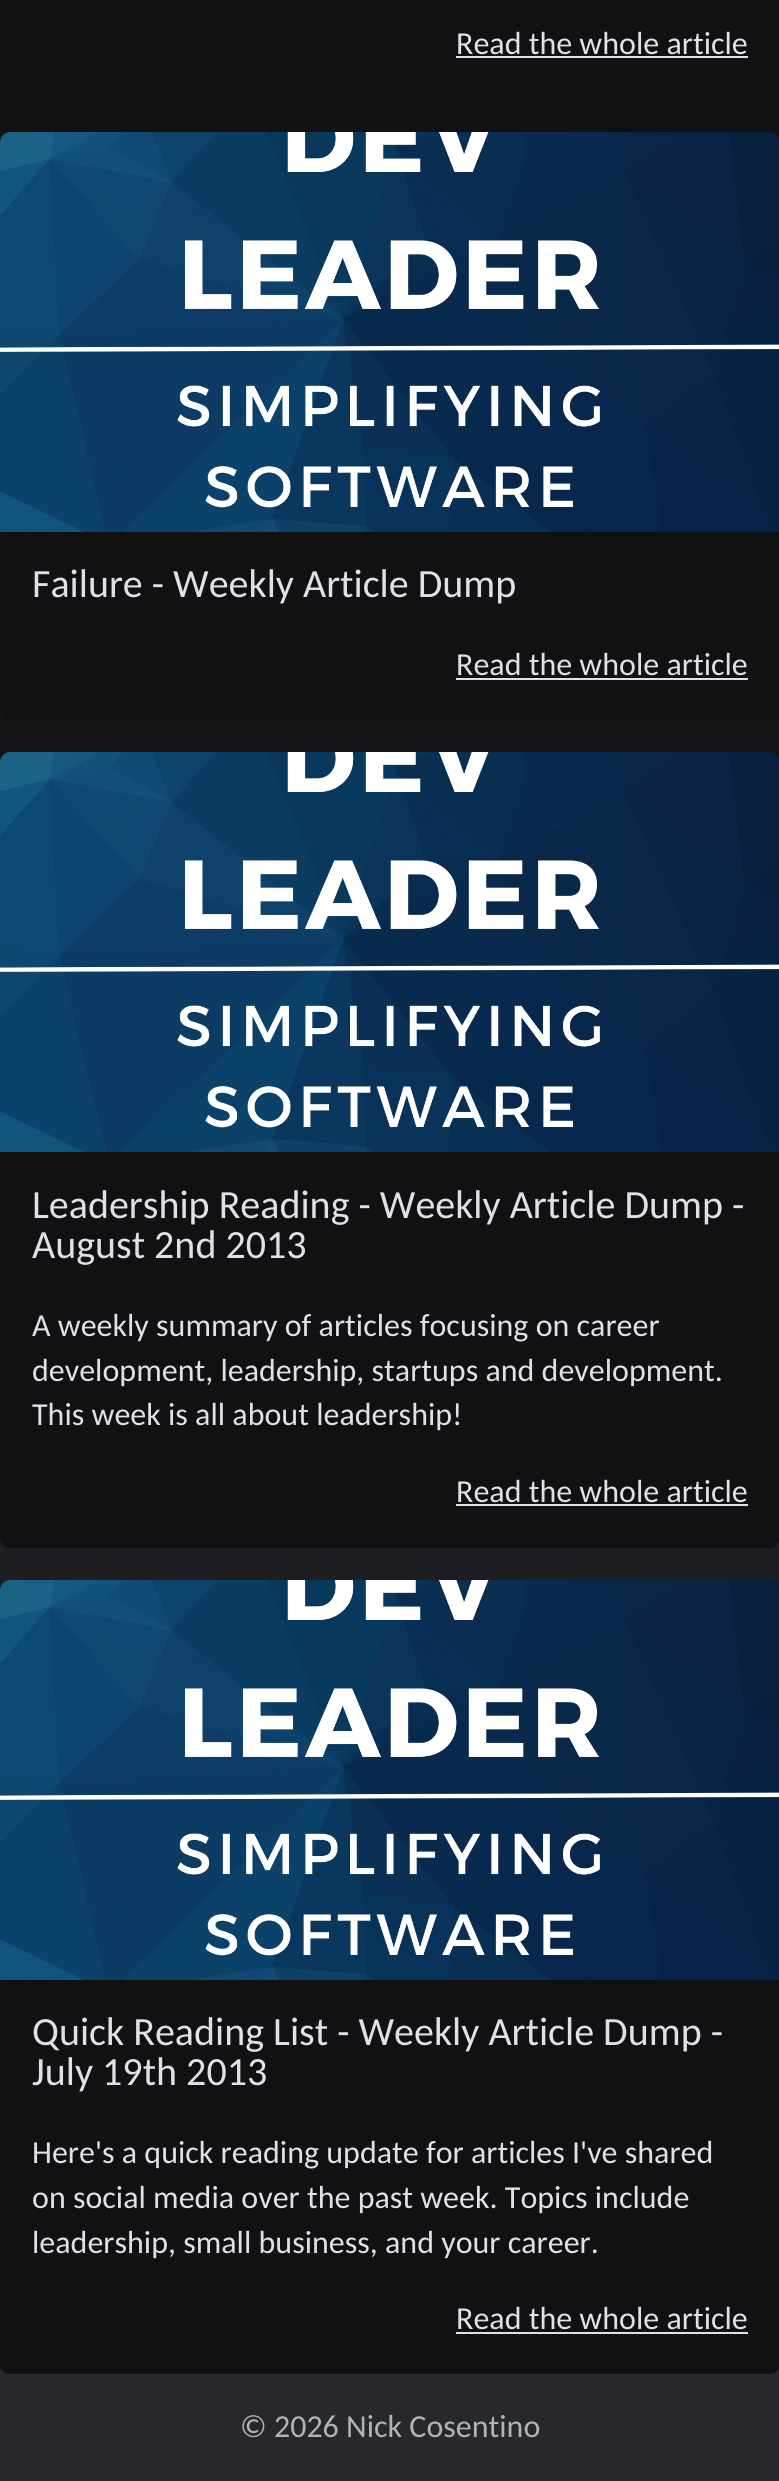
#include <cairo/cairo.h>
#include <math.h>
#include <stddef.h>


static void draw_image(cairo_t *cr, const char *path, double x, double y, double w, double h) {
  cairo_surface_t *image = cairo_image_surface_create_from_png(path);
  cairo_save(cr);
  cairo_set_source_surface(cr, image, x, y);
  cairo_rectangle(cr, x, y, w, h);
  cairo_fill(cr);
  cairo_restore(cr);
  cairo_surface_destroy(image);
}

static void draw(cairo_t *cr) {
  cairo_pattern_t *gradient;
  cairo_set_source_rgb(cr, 1, 1, 1);
  cairo_paint(cr);
  gradient = cairo_pattern_create_linear(390, 0, 390, 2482);
  cairo_pattern_add_color_stop_rgba(gradient, 0.2, 17 / 255.0, 16 / 255.0, 19 / 255.0, 1);
  cairo_pattern_add_color_stop_rgba(gradient, 1, 40 / 255.0, 40 / 255.0, 47 / 255.0, 1);
  cairo_set_source(cr, gradient);
  cairo_pattern_destroy(gradient);
  cairo_rectangle(cr, 0, 0, 779, 2481);
  cairo_fill(cr);
  cairo_set_source_rgb(cr, 222 / 255.0, 226 / 255.0, 230 / 255.0);
  cairo_rectangle(cr, 456, 56, 292, 2);
  cairo_fill(cr);
  draw_image(cr, "images/1.png", 0, 132, 779, 400);
  cairo_set_source_rgb(cr, 17 / 255.0, 16 / 255.0, 19 / 255.0);
  cairo_new_path(cr);
  cairo_move_to(cr, 0, 532);
  cairo_line_to(cr, 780, 532);
  cairo_line_to(cr, 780, 710);
  cairo_curve_to(cr, 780, 715.5, 775.5, 720, 770, 720);
  cairo_line_to(cr, 10, 720);
  cairo_curve_to(cr, 4.5, 720, 0, 715.5, 0, 710);
  cairo_close_path(cr);
  cairo_fill(cr);
  cairo_set_source_rgb(cr, 222 / 255.0, 226 / 255.0, 230 / 255.0);
  cairo_rectangle(cr, 456, 678, 292, 2);
  cairo_fill(cr);
  draw_image(cr, "images/2.png", 0, 752, 779, 400);
  cairo_set_source_rgb(cr, 17 / 255.0, 16 / 255.0, 19 / 255.0);
  cairo_new_path(cr);
  cairo_move_to(cr, 0, 1152);
  cairo_line_to(cr, 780, 1152);
  cairo_line_to(cr, 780, 1538);
  cairo_curve_to(cr, 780, 1543.5, 775.5, 1548, 770, 1548);
  cairo_line_to(cr, 10, 1548);
  cairo_curve_to(cr, 4.5, 1548, 0, 1543.5, 0, 1538);
  cairo_close_path(cr);
  cairo_fill(cr);
  cairo_set_source_rgb(cr, 222 / 255.0, 226 / 255.0, 230 / 255.0);
  cairo_rectangle(cr, 456, 1504, 292, 2);
  cairo_fill(cr);
  draw_image(cr, "images/3.png", 0, 1580, 779, 400);
  cairo_set_source_rgb(cr, 17 / 255.0, 16 / 255.0, 19 / 255.0);
  cairo_new_path(cr);
  cairo_move_to(cr, 0, 1980);
  cairo_line_to(cr, 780, 1980);
  cairo_line_to(cr, 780, 2364);
  cairo_curve_to(cr, 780, 2369.5, 775.5, 2374, 770, 2374);
  cairo_line_to(cr, 10, 2374);
  cairo_curve_to(cr, 4.5, 2374, 0, 2369.5, 0, 2364);
  cairo_close_path(cr);
  cairo_fill(cr);
  cairo_set_source_rgb(cr, 222 / 255.0, 226 / 255.0, 230 / 255.0);
  cairo_rectangle(cr, 456, 2332, 292, 2);
  cairo_fill(cr);
  cairo_select_font_face(cr, "Carlito", CAIRO_FONT_SLANT_NORMAL, CAIRO_FONT_WEIGHT_NORMAL);
  cairo_set_font_size(cr, 32);
  cairo_move_to(cr, 456, 54);
  cairo_show_text(cr, "Read the whole article");
  cairo_set_font_size(cr, 40);
  cairo_move_to(cr, 32, 597);
  cairo_show_text(cr, "Failure - Weekly Article Dump");
  cairo_set_font_size(cr, 32);
  cairo_move_to(cr, 456, 675);
  cairo_show_text(cr, "Read the whole article");
  cairo_set_font_size(cr, 40);
  cairo_move_to(cr, 32, 1218);
  cairo_show_text(cr, "Leadership Reading - Weekly Article Dump -");
  cairo_move_to(cr, 32, 1258);
  cairo_show_text(cr, "August 2nd 2013");
  cairo_set_font_size(cr, 32);
  cairo_move_to(cr, 32, 1336);
  cairo_show_text(cr, "A weekly summary of articles focusing on career");
  cairo_move_to(cr, 32, 1381);
  cairo_show_text(cr, "development, leadership, startups and development.");
  cairo_move_to(cr, 32, 1425);
  cairo_show_text(cr, "This week is all about leadership!");
  cairo_move_to(cr, 456, 1502);
  cairo_show_text(cr, "Read the whole article");
  cairo_set_font_size(cr, 40);
  cairo_move_to(cr, 32, 2045);
  cairo_show_text(cr, "Quick Reading List - Weekly Article Dump -");
  cairo_move_to(cr, 32, 2085);
  cairo_show_text(cr, "July 19th 2013");
  cairo_set_font_size(cr, 32);
  cairo_move_to(cr, 32, 2163);
  cairo_show_text(cr, "Here's a quick reading update for articles I've shared");
  cairo_move_to(cr, 32, 2208);
  cairo_show_text(cr, "on social media over the past week. Topics include");
  cairo_move_to(cr, 32, 2253);
  cairo_show_text(cr, "leadership, small business, and your career.");
  cairo_move_to(cr, 456, 2329);
  cairo_show_text(cr, "Read the whole article");
  cairo_set_source_rgb(cr, 176 / 255.0, 179 / 255.0, 184 / 255.0);
  cairo_move_to(cr, 240, 2437);
  cairo_show_text(cr, "© 2026 Nick Cosentino");
}

int main(void) {
  cairo_surface_t *surface = cairo_image_surface_create(CAIRO_FORMAT_RGB24, 779, 2481);
  cairo_t *cr = cairo_create(surface);
  cairo_font_options_t *options = cairo_font_options_create();
  cairo_font_options_set_hint_metrics(options, CAIRO_HINT_METRICS_OFF);
  cairo_font_options_set_hint_style(options, CAIRO_HINT_STYLE_NONE);
  cairo_set_font_options(cr, options);
  cairo_set_miter_limit(cr, 4);
  draw(cr);
  cairo_surface_write_to_png(surface, "out.png");
  cairo_font_options_destroy(options);
  cairo_destroy(cr);
  cairo_surface_destroy(surface);
  return 0;
}
